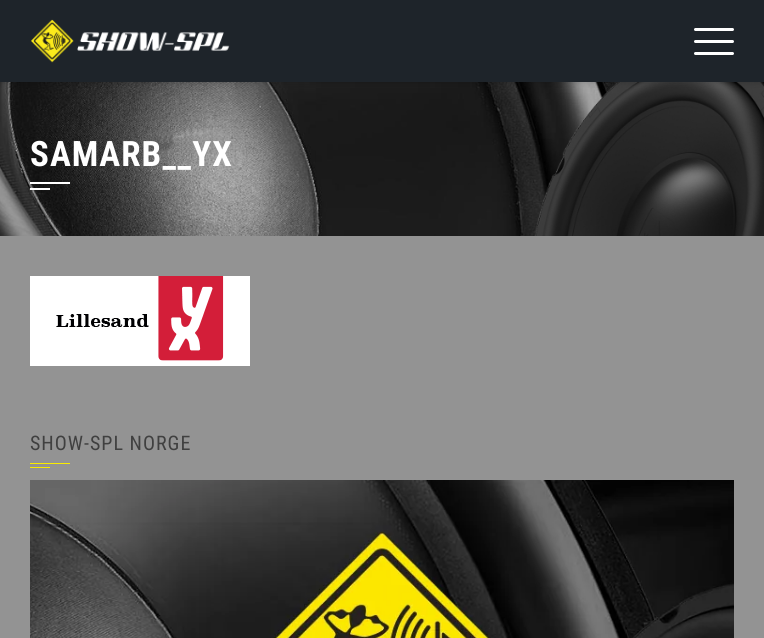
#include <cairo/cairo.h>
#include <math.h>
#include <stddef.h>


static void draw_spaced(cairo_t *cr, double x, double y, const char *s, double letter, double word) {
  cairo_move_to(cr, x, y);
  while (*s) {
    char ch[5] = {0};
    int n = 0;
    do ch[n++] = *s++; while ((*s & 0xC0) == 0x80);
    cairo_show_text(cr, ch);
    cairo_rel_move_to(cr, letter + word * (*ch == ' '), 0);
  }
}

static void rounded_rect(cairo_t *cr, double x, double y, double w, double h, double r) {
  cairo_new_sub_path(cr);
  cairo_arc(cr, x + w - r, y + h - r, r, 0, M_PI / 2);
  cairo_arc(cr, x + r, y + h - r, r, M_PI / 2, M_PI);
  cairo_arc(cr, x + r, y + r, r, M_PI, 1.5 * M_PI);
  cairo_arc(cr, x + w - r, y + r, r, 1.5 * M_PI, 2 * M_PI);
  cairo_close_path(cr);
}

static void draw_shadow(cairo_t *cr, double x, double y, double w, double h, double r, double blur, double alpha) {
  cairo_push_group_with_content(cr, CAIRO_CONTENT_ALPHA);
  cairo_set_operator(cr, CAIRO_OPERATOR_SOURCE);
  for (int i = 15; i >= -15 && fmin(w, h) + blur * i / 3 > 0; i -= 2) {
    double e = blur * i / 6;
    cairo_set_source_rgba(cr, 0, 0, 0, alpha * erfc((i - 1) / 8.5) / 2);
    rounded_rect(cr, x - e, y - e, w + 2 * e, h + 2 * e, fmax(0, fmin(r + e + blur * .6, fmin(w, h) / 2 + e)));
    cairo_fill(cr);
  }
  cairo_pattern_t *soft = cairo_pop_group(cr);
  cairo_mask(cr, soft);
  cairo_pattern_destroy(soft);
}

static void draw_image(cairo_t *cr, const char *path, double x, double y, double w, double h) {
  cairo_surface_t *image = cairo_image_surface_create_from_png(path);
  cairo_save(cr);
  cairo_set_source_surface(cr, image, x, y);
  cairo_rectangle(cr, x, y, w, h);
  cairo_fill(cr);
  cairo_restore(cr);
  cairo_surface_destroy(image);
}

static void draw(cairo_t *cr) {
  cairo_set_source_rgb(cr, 147 / 255.0, 147 / 255.0, 147 / 255.0);
  cairo_paint(cr);
  draw_image(cr, "images/2.png", 0, 82, 764, 154);
  cairo_set_source_rgb(cr, 0, 0, 0);
  draw_shadow(cr, 0, 0, 764, 82, 0, 4, 0.2);
  cairo_set_source_rgb(cr, 30 / 255.0, 36 / 255.0, 42 / 255.0);
  cairo_rectangle(cr, 0, 0, 764, 82);
  cairo_fill(cr);
  draw_image(cr, "images/1.png", 31, 19, 199, 44);
  cairo_set_source_rgb(cr, 1, 1, 1);
  rounded_rect(cr, 694, 40, 40, 3, 1.5);
  cairo_fill(cr);
  rounded_rect(cr, 694, 28, 40, 3, 1.5);
  cairo_fill(cr);
  rounded_rect(cr, 694, 52, 40, 3, 1.5);
  cairo_fill(cr);
  cairo_rectangle(cr, 30, 182, 40, 2);
  cairo_fill(cr);
  cairo_rectangle(cr, 30, 188, 20, 2);
  cairo_fill(cr);
  draw_image(cr, "images/3.png", 30, 276, 220, 90);
  cairo_set_source_rgb(cr, 249 / 255.0, 236 / 255.0, 0);
  cairo_rectangle(cr, 30, 463, 40, 1);
  cairo_fill(cr);
  cairo_rectangle(cr, 30, 467, 20, 1);
  cairo_fill(cr);
  draw_image(cr, "images/4.png", 30, 480, 704, 158);
  cairo_select_font_face(cr, "Roboto Condensed", CAIRO_FONT_SLANT_NORMAL, CAIRO_FONT_WEIGHT_BOLD);
  cairo_set_font_size(cr, 35);
  cairo_set_source_rgb(cr, 1, 1, 1);
  draw_spaced(cr, 30, 166, "SAMARB__YX", 1, 0);
  cairo_select_font_face(cr, "Roboto Condensed", CAIRO_FONT_SLANT_NORMAL, CAIRO_FONT_WEIGHT_NORMAL);
  cairo_set_font_size(cr, 20);
  cairo_set_source_rgb(cr, 64 / 255.0, 64 / 255.0, 64 / 255.0);
  draw_spaced(cr, 30, 450, "SHOW-SPL NORGE", 1, 0);
}

int main(void) {
  cairo_surface_t *surface = cairo_image_surface_create(CAIRO_FORMAT_RGB24, 764, 638);
  cairo_t *cr = cairo_create(surface);
  cairo_font_options_t *options = cairo_font_options_create();
  cairo_font_options_set_hint_metrics(options, CAIRO_HINT_METRICS_OFF);
  cairo_font_options_set_hint_style(options, CAIRO_HINT_STYLE_NONE);
  cairo_set_font_options(cr, options);
  cairo_set_miter_limit(cr, 4);
  draw(cr);
  cairo_surface_write_to_png(surface, "out.png");
  cairo_font_options_destroy(options);
  cairo_destroy(cr);
  cairo_surface_destroy(surface);
  return 0;
}
